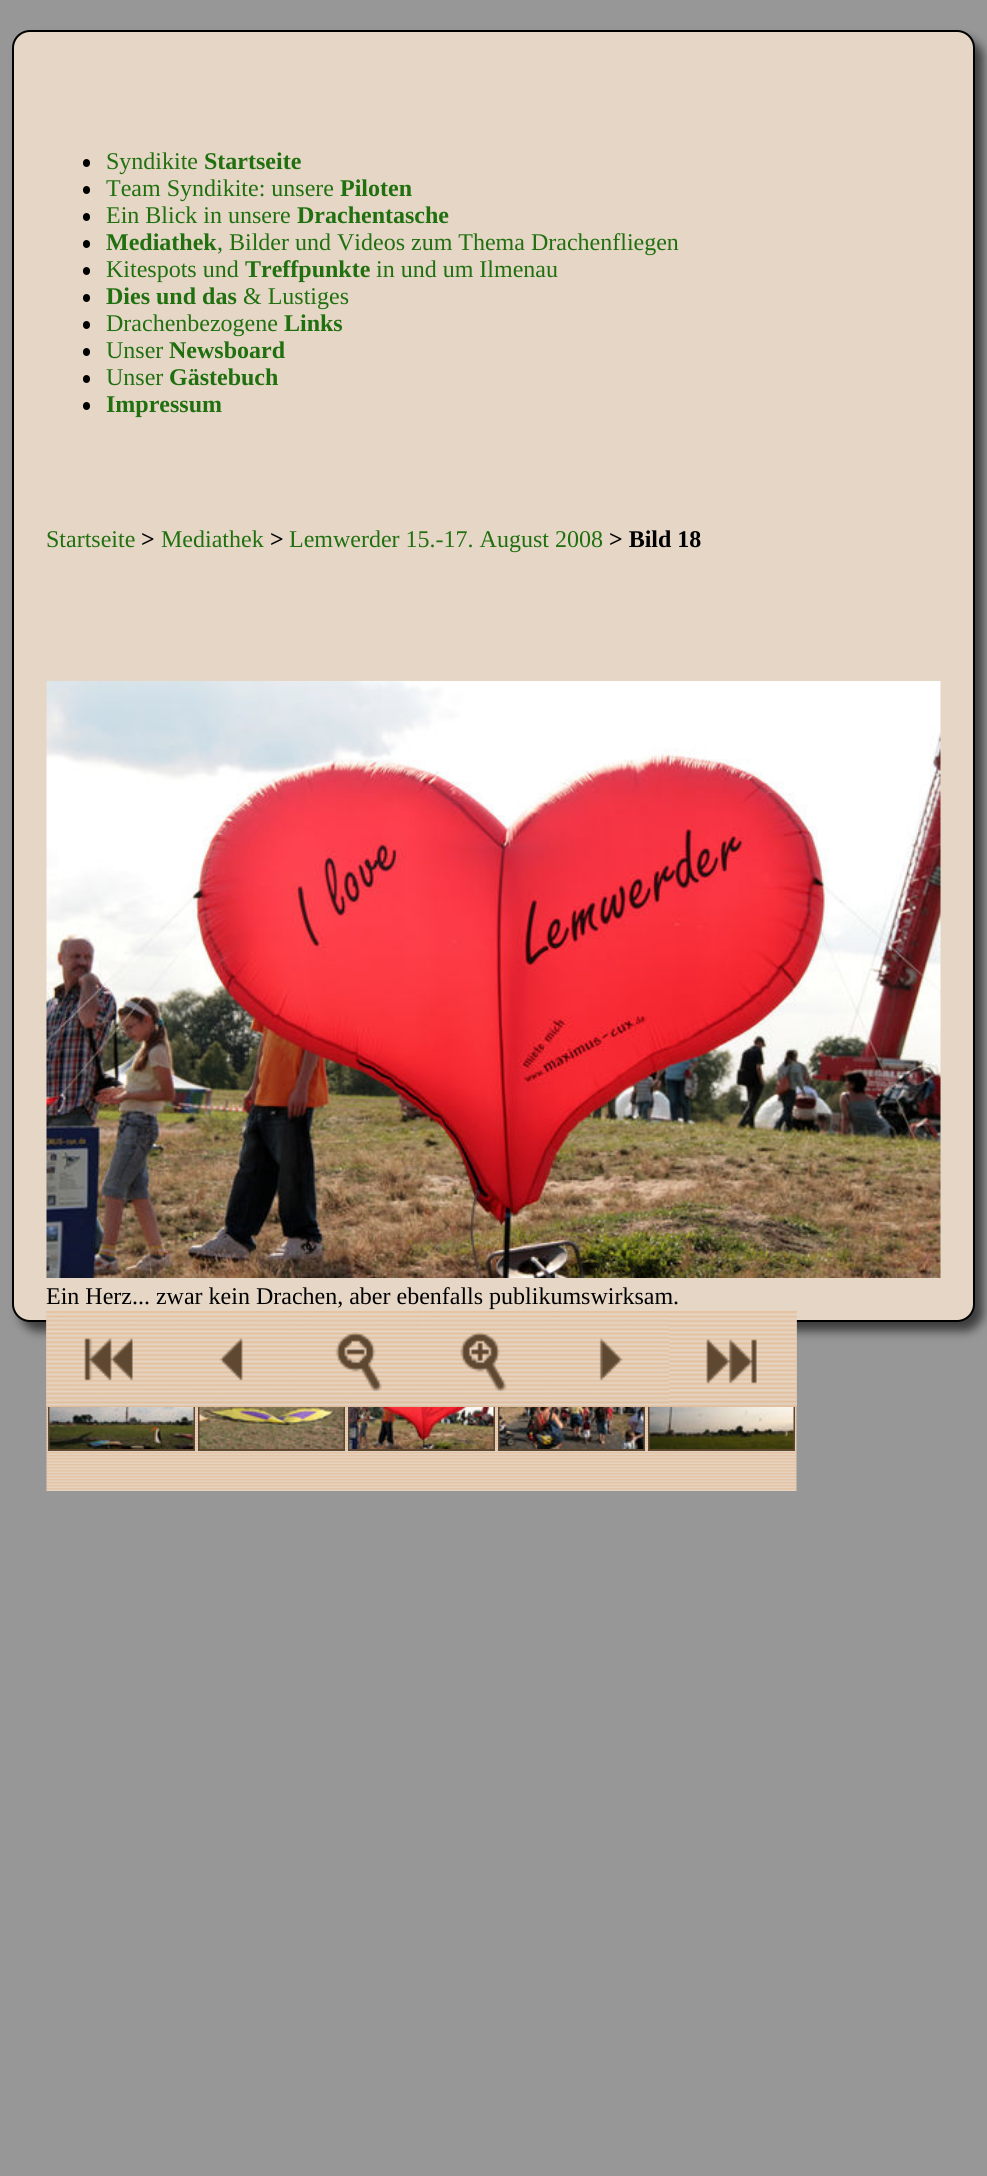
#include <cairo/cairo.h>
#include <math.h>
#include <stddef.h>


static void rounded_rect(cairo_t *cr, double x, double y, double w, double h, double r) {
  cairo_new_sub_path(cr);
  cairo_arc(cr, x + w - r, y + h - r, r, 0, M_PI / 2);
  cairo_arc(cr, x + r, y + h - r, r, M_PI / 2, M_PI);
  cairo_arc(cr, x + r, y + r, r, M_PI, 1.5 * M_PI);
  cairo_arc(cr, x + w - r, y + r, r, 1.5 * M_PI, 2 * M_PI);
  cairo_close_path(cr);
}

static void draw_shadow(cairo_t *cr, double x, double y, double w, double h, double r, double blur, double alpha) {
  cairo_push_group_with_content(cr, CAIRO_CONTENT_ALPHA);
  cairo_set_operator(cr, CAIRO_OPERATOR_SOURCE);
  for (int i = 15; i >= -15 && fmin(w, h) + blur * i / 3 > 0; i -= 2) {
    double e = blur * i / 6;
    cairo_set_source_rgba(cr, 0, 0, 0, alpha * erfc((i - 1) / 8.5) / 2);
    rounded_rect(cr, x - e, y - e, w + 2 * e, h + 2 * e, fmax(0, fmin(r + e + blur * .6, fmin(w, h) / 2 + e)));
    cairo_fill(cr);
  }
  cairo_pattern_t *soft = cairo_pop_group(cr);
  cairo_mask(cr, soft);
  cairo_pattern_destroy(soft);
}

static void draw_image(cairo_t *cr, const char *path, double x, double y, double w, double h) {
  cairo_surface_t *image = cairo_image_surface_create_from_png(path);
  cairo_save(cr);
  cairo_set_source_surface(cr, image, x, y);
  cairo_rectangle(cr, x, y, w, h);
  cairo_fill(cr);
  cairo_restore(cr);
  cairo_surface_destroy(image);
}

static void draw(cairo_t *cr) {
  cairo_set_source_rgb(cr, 151 / 255.0, 151 / 255.0, 151 / 255.0);
  cairo_paint(cr);
  cairo_set_source_rgb(cr, 60 / 255.0, 60 / 255.0, 60 / 255.0);
  draw_shadow(cr, 20, 39, 963, 1292, 18, 5, 1);
  cairo_set_source_rgb(cr, 230 / 255.0, 214 / 255.0, 198 / 255.0);
  rounded_rect(cr, 13, 31, 961, 1290, 17);
  cairo_fill_preserve(cr);
  cairo_set_source_rgb(cr, 0, 0, 0);
  cairo_stroke(cr);
  rounded_rect(cr, 83, 159, 7, 8, 3.5);
  cairo_fill(cr);
  rounded_rect(cr, 83, 186, 7, 8, 3.5);
  cairo_fill(cr);
  rounded_rect(cr, 83, 213, 7, 8, 3.5);
  cairo_fill(cr);
  rounded_rect(cr, 83, 240, 7, 8, 3.5);
  cairo_fill(cr);
  rounded_rect(cr, 83, 267, 7, 8, 3.5);
  cairo_fill(cr);
  rounded_rect(cr, 83, 294, 7, 8, 3.5);
  cairo_fill(cr);
  rounded_rect(cr, 83, 321, 7, 8, 3.5);
  cairo_fill(cr);
  rounded_rect(cr, 83, 348, 7, 8, 3.5);
  cairo_fill(cr);
  rounded_rect(cr, 83, 375, 7, 8, 3.5);
  cairo_fill(cr);
  rounded_rect(cr, 83, 402, 7, 8, 3.5);
  cairo_fill(cr);
  draw_image(cr, "images/1.png", 46, 681, 895, 597);
  draw_image(cr, "images/2.png", 46, 1311, 751, 180);
  cairo_rectangle(cr, 49, 1353, 145, 97);
  cairo_set_source_rgb(cr, 94 / 255.0, 72 / 255.0, 50 / 255.0);
  cairo_stroke(cr);
  draw_image(cr, "images/3.png", 49, 1407, 145, 42);
  cairo_rectangle(cr, 199, 1353, 145, 97);
  cairo_stroke(cr);
  draw_image(cr, "images/4.png", 199, 1407, 145, 42);
  cairo_rectangle(cr, 349, 1353, 145, 97);
  cairo_stroke(cr);
  draw_image(cr, "images/5.png", 349, 1407, 145, 42);
  cairo_rectangle(cr, 499, 1353, 145, 97);
  cairo_stroke(cr);
  draw_image(cr, "images/6.png", 499, 1407, 145, 42);
  cairo_rectangle(cr, 649, 1353, 145, 97);
  cairo_stroke(cr);
  draw_image(cr, "images/7.png", 649, 1407, 145, 42);
  draw_image(cr, "images/8.png", 46, 1311, 751, 96);
  draw_image(cr, "images/9.png", 46, 1311, 125, 96);
  draw_image(cr, "images/10.png", 171, 1311, 125, 96);
  draw_image(cr, "images/11.png", 295, 1311, 125, 96);
  draw_image(cr, "images/12.png", 420, 1311, 125, 96);
  draw_image(cr, "images/13.png", 544, 1311, 125, 96);
  draw_image(cr, "images/14.png", 669, 1311, 128, 96);
  cairo_select_font_face(cr, "Liberation Serif", CAIRO_FONT_SLANT_NORMAL, CAIRO_FONT_WEIGHT_NORMAL);
  cairo_set_font_size(cr, 24);
  cairo_set_source_rgb(cr, 32 / 255.0, 112 / 255.0, 15 / 255.0);
  cairo_move_to(cr, 106, 169);
  cairo_show_text(cr, "Syndikite");
  cairo_select_font_face(cr, "Liberation Serif", CAIRO_FONT_SLANT_NORMAL, CAIRO_FONT_WEIGHT_BOLD);
  cairo_move_to(cr, 204, 169);
  cairo_show_text(cr, "Startseite");
  cairo_select_font_face(cr, "Liberation Serif", CAIRO_FONT_SLANT_NORMAL, CAIRO_FONT_WEIGHT_NORMAL);
  cairo_move_to(cr, 106, 196);
  cairo_show_text(cr, "Team Syndikite: unsere");
  cairo_select_font_face(cr, "Liberation Serif", CAIRO_FONT_SLANT_NORMAL, CAIRO_FONT_WEIGHT_BOLD);
  cairo_move_to(cr, 340, 196);
  cairo_show_text(cr, "Piloten");
  cairo_select_font_face(cr, "Liberation Serif", CAIRO_FONT_SLANT_NORMAL, CAIRO_FONT_WEIGHT_NORMAL);
  cairo_move_to(cr, 106, 223);
  cairo_show_text(cr, "Ein Blick in unsere");
  cairo_select_font_face(cr, "Liberation Serif", CAIRO_FONT_SLANT_NORMAL, CAIRO_FONT_WEIGHT_BOLD);
  cairo_move_to(cr, 297, 223);
  cairo_show_text(cr, "Drachentasche");
  cairo_move_to(cr, 106, 250);
  cairo_show_text(cr, "Mediathek");
  cairo_select_font_face(cr, "Liberation Serif", CAIRO_FONT_SLANT_NORMAL, CAIRO_FONT_WEIGHT_NORMAL);
  cairo_move_to(cr, 217, 250);
  cairo_show_text(cr, ", Bilder und Videos zum Thema Drachenfliegen");
  cairo_move_to(cr, 106, 277);
  cairo_show_text(cr, "Kitespots und");
  cairo_select_font_face(cr, "Liberation Serif", CAIRO_FONT_SLANT_NORMAL, CAIRO_FONT_WEIGHT_BOLD);
  cairo_move_to(cr, 245, 277);
  cairo_show_text(cr, "Treffpunkte");
  cairo_select_font_face(cr, "Liberation Serif", CAIRO_FONT_SLANT_NORMAL, CAIRO_FONT_WEIGHT_NORMAL);
  cairo_move_to(cr, 376, 277);
  cairo_show_text(cr, "in und um Ilmenau");
  cairo_select_font_face(cr, "Liberation Serif", CAIRO_FONT_SLANT_NORMAL, CAIRO_FONT_WEIGHT_BOLD);
  cairo_move_to(cr, 106, 304);
  cairo_show_text(cr, "Dies und das");
  cairo_select_font_face(cr, "Liberation Serif", CAIRO_FONT_SLANT_NORMAL, CAIRO_FONT_WEIGHT_NORMAL);
  cairo_move_to(cr, 243, 304);
  cairo_show_text(cr, "& Lustiges");
  cairo_move_to(cr, 106, 331);
  cairo_show_text(cr, "Drachenbezogene");
  cairo_select_font_face(cr, "Liberation Serif", CAIRO_FONT_SLANT_NORMAL, CAIRO_FONT_WEIGHT_BOLD);
  cairo_move_to(cr, 284, 331);
  cairo_show_text(cr, "Links");
  cairo_select_font_face(cr, "Liberation Serif", CAIRO_FONT_SLANT_NORMAL, CAIRO_FONT_WEIGHT_NORMAL);
  cairo_move_to(cr, 106, 358);
  cairo_show_text(cr, "Unser");
  cairo_select_font_face(cr, "Liberation Serif", CAIRO_FONT_SLANT_NORMAL, CAIRO_FONT_WEIGHT_BOLD);
  cairo_move_to(cr, 169, 358);
  cairo_show_text(cr, "Newsboard");
  cairo_select_font_face(cr, "Liberation Serif", CAIRO_FONT_SLANT_NORMAL, CAIRO_FONT_WEIGHT_NORMAL);
  cairo_move_to(cr, 106, 385);
  cairo_show_text(cr, "Unser");
  cairo_select_font_face(cr, "Liberation Serif", CAIRO_FONT_SLANT_NORMAL, CAIRO_FONT_WEIGHT_BOLD);
  cairo_move_to(cr, 169, 385);
  cairo_show_text(cr, "Gästebuch");
  cairo_move_to(cr, 106, 412);
  cairo_show_text(cr, "Impressum");
  cairo_select_font_face(cr, "Liberation Serif", CAIRO_FONT_SLANT_NORMAL, CAIRO_FONT_WEIGHT_NORMAL);
  cairo_move_to(cr, 46, 547);
  cairo_show_text(cr, "Startseite");
  cairo_select_font_face(cr, "Liberation Serif", CAIRO_FONT_SLANT_NORMAL, CAIRO_FONT_WEIGHT_BOLD);
  cairo_set_source_rgb(cr, 0, 0, 0);
  cairo_move_to(cr, 141, 547);
  cairo_show_text(cr, ">");
  cairo_select_font_face(cr, "Liberation Serif", CAIRO_FONT_SLANT_NORMAL, CAIRO_FONT_WEIGHT_NORMAL);
  cairo_set_source_rgb(cr, 32 / 255.0, 112 / 255.0, 15 / 255.0);
  cairo_move_to(cr, 161, 547);
  cairo_show_text(cr, "Mediathek");
  cairo_select_font_face(cr, "Liberation Serif", CAIRO_FONT_SLANT_NORMAL, CAIRO_FONT_WEIGHT_BOLD);
  cairo_set_source_rgb(cr, 0, 0, 0);
  cairo_move_to(cr, 270, 547);
  cairo_show_text(cr, ">");
  cairo_select_font_face(cr, "Liberation Serif", CAIRO_FONT_SLANT_NORMAL, CAIRO_FONT_WEIGHT_NORMAL);
  cairo_set_source_rgb(cr, 32 / 255.0, 112 / 255.0, 15 / 255.0);
  cairo_move_to(cr, 289, 547);
  cairo_show_text(cr, "Lemwerder 15.-17. August 2008");
  cairo_select_font_face(cr, "Liberation Serif", CAIRO_FONT_SLANT_NORMAL, CAIRO_FONT_WEIGHT_BOLD);
  cairo_set_source_rgb(cr, 0, 0, 0);
  cairo_move_to(cr, 609, 547);
  cairo_show_text(cr, "> Bild 18");
  cairo_select_font_face(cr, "Liberation Serif", CAIRO_FONT_SLANT_NORMAL, CAIRO_FONT_WEIGHT_NORMAL);
  cairo_move_to(cr, 46, 1304);
  cairo_show_text(cr, "Ein Herz... zwar kein Drachen, aber ebenfalls publikumswirksam.");
}

int main(void) {
  cairo_surface_t *surface = cairo_image_surface_create(CAIRO_FORMAT_RGB24, 987, 2176);
  cairo_t *cr = cairo_create(surface);
  cairo_font_options_t *options = cairo_font_options_create();
  cairo_font_options_set_hint_metrics(options, CAIRO_HINT_METRICS_OFF);
  cairo_font_options_set_hint_style(options, CAIRO_HINT_STYLE_NONE);
  cairo_set_font_options(cr, options);
  cairo_set_miter_limit(cr, 4);
  draw(cr);
  cairo_surface_write_to_png(surface, "out.png");
  cairo_font_options_destroy(options);
  cairo_destroy(cr);
  cairo_surface_destroy(surface);
  return 0;
}
